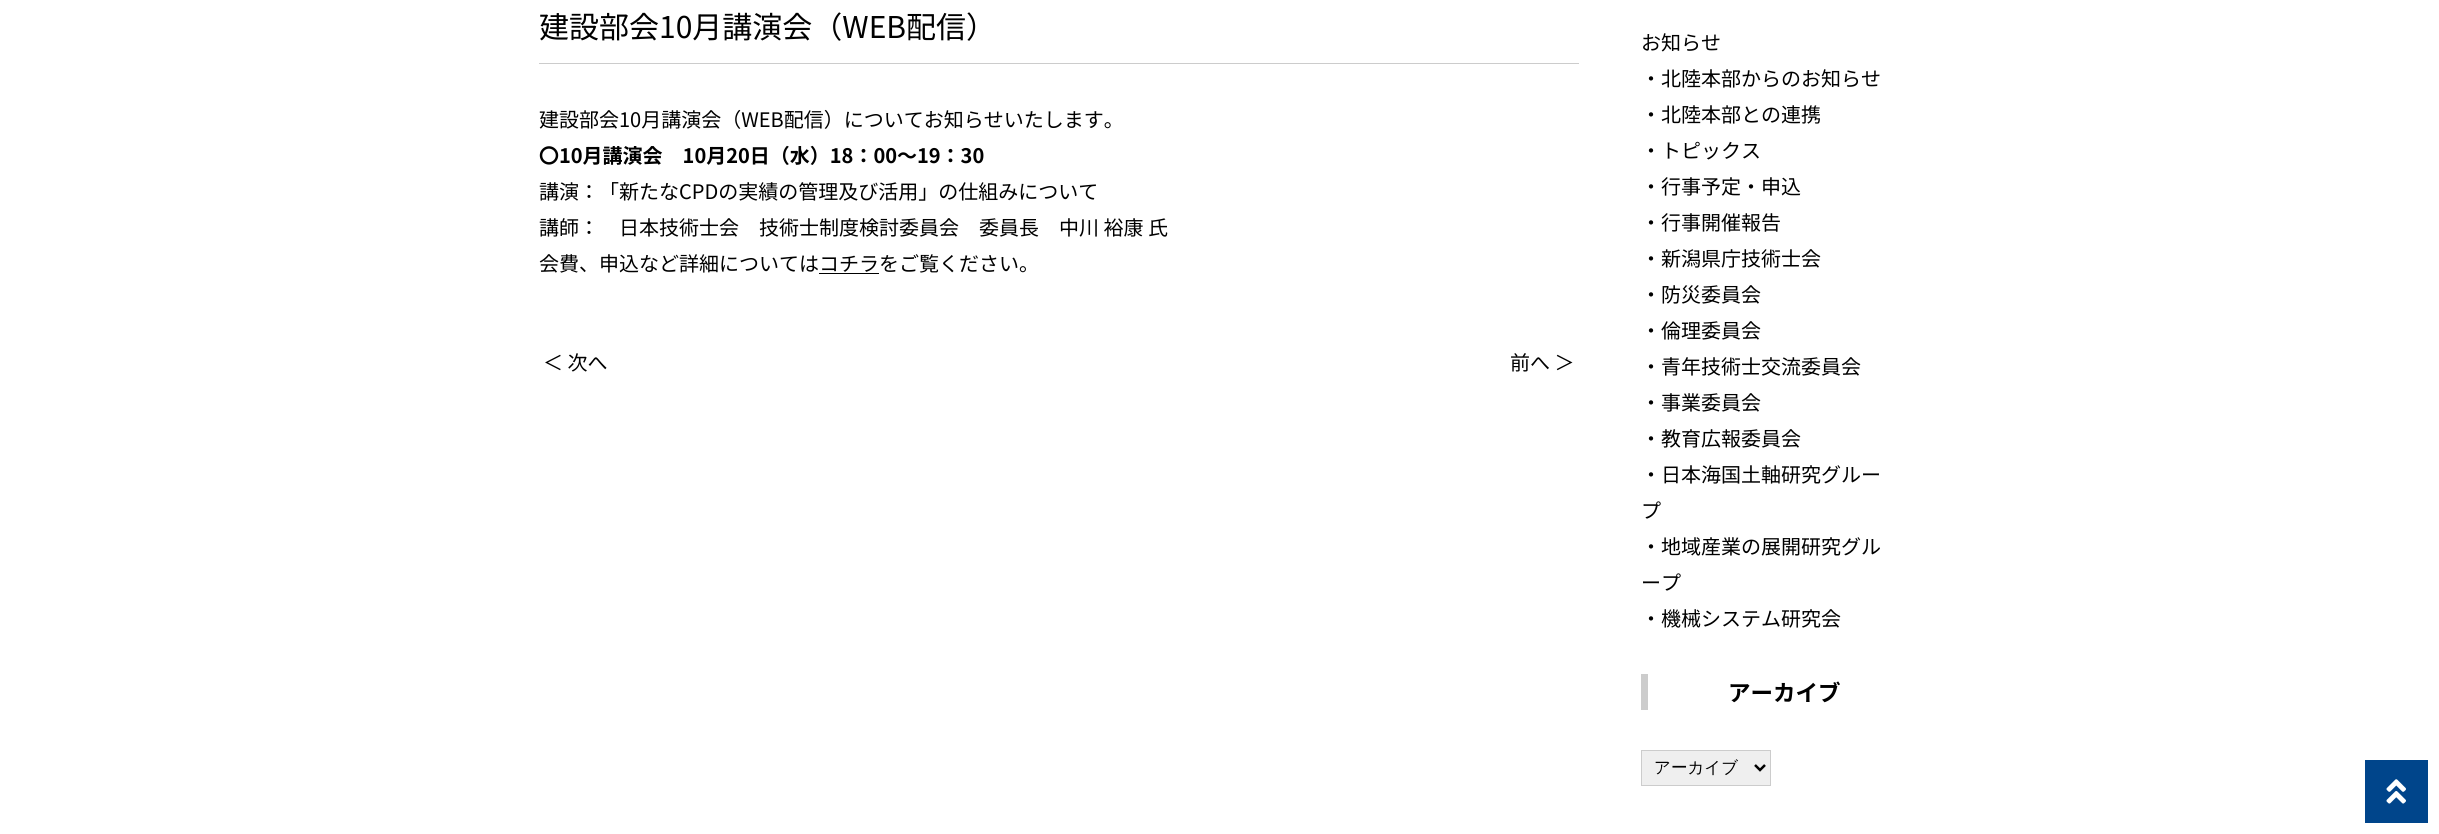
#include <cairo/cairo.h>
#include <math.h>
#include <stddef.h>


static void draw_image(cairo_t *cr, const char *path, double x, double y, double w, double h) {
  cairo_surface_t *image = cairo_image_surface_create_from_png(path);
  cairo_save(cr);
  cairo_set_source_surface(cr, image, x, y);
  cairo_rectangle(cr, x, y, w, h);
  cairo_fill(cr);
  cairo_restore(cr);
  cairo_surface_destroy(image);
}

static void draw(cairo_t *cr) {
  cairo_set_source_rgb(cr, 1, 1, 1);
  cairo_paint(cr);
  cairo_set_source_rgb(cr, 204 / 255.0, 204 / 255.0, 204 / 255.0);
  cairo_rectangle(cr, 539, 63, 1040, 1);
  cairo_fill(cr);
  cairo_set_source_rgb(cr, 0, 0, 0);
  cairo_rectangle(cr, 819, 273, 60, 1);
  cairo_fill(cr);
  cairo_set_source_rgb(cr, 204 / 255.0, 204 / 255.0, 204 / 255.0);
  cairo_rectangle(cr, 1641, 674, 7, 36);
  cairo_fill(cr);
  cairo_set_source_rgb(cr, 239 / 255.0, 239 / 255.0, 239 / 255.0);
  cairo_rectangle(cr, 1641.5, 750.5, 129, 35);
  cairo_fill_preserve(cr);
  cairo_set_source_rgb(cr, 204 / 255.0, 204 / 255.0, 204 / 255.0);
  cairo_set_line_width(cr, 1);
  cairo_stroke(cr);
  cairo_new_path(cr);
  cairo_move_to(cr, 1755, 765);
  cairo_line_to(cr, 1760, 770);
  cairo_line_to(cr, 1765, 765);
  cairo_set_source_rgb(cr, 0, 0, 0);
  cairo_set_line_width(cr, 2.5);
  cairo_stroke(cr);
  cairo_set_source_rgb(cr, 0, 69 / 255.0, 139 / 255.0);
  cairo_rectangle(cr, 2365, 760, 63, 63);
  cairo_fill(cr);
  draw_image(cr, "images/1.png", 2386, 779, 20, 25);
  cairo_select_font_face(cr, "Noto Sans JP", CAIRO_FONT_SLANT_NORMAL, CAIRO_FONT_WEIGHT_NORMAL);
  cairo_set_font_size(cr, 30);
  cairo_set_source_rgb(cr, 0, 0, 0);
  cairo_move_to(cr, 539, 38);
  cairo_show_text(cr, "建設部会10月講演会（WEB配信）");
  cairo_set_font_size(cr, 20);
  cairo_move_to(cr, 539, 127);
  cairo_show_text(cr, "建設部会10月講演会（WEB配信）についてお知らせいたします。");
  cairo_select_font_face(cr, "Noto Sans JP", CAIRO_FONT_SLANT_NORMAL, CAIRO_FONT_WEIGHT_BOLD);
  cairo_move_to(cr, 539, 163);
  cairo_show_text(cr, "〇10月講演会　10月20日（水）18：00～19：30");
  cairo_select_font_face(cr, "Noto Sans JP", CAIRO_FONT_SLANT_NORMAL, CAIRO_FONT_WEIGHT_NORMAL);
  cairo_move_to(cr, 539, 199);
  cairo_show_text(cr, "講演：「新たなCPDの実績の管理及び活用」の仕組みについて");
  cairo_move_to(cr, 539, 235);
  cairo_show_text(cr, "講師：　日本技術士会　技術士制度検討委員会　委員長　中川 裕康 氏");
  cairo_move_to(cr, 539, 271);
  cairo_show_text(cr, "会費、申込など詳細についてはコチラをご覧ください。");
  cairo_move_to(cr, 543, 370);
  cairo_show_text(cr, "＜ 次へ");
  cairo_move_to(cr, 1510, 370);
  cairo_show_text(cr, "前へ ＞");
  cairo_move_to(cr, 1641, 50);
  cairo_show_text(cr, "お知らせ");
  cairo_move_to(cr, 1641, 86);
  cairo_show_text(cr, "・北陸本部からのお知らせ");
  cairo_move_to(cr, 1641, 122);
  cairo_show_text(cr, "・北陸本部との連携");
  cairo_move_to(cr, 1641, 158);
  cairo_show_text(cr, "・トピックス");
  cairo_move_to(cr, 1641, 194);
  cairo_show_text(cr, "・行事予定・申込");
  cairo_move_to(cr, 1641, 230);
  cairo_show_text(cr, "・行事開催報告");
  cairo_move_to(cr, 1641, 266);
  cairo_show_text(cr, "・新潟県庁技術士会");
  cairo_move_to(cr, 1641, 302);
  cairo_show_text(cr, "・防災委員会");
  cairo_move_to(cr, 1641, 338);
  cairo_show_text(cr, "・倫理委員会");
  cairo_move_to(cr, 1641, 374);
  cairo_show_text(cr, "・青年技術士交流委員会");
  cairo_move_to(cr, 1641, 410);
  cairo_show_text(cr, "・事業委員会");
  cairo_move_to(cr, 1641, 446);
  cairo_show_text(cr, "・教育広報委員会");
  cairo_move_to(cr, 1641, 482);
  cairo_show_text(cr, "・日本海国土軸研究グルー");
  cairo_move_to(cr, 1641, 518);
  cairo_show_text(cr, "プ");
  cairo_move_to(cr, 1641, 554);
  cairo_show_text(cr, "・地域産業の展開研究グル");
  cairo_move_to(cr, 1641, 590);
  cairo_show_text(cr, "ープ");
  cairo_move_to(cr, 1641, 626);
  cairo_show_text(cr, "・機械システム研究会");
  cairo_select_font_face(cr, "Noto Sans JP", CAIRO_FONT_SLANT_NORMAL, CAIRO_FONT_WEIGHT_BOLD);
  cairo_set_font_size(cr, 22.5);
  cairo_move_to(cr, 1728, 701);
  cairo_show_text(cr, "アーカイブ");
  cairo_select_font_face(cr, "WenQuanYi Zen Hei Medium", CAIRO_FONT_SLANT_NORMAL, CAIRO_FONT_WEIGHT_NORMAL);
  cairo_set_font_size(cr, 16.5);
  cairo_move_to(cr, 1654, 773);
  cairo_show_text(cr, "アーカイブ");
}

int main(void) {
  cairo_surface_t *surface = cairo_image_surface_create(CAIRO_FORMAT_RGB24, 2439, 834);
  cairo_t *cr = cairo_create(surface);
  cairo_font_options_t *options = cairo_font_options_create();
  cairo_font_options_set_hint_metrics(options, CAIRO_HINT_METRICS_OFF);
  cairo_font_options_set_hint_style(options, CAIRO_HINT_STYLE_NONE);
  cairo_set_font_options(cr, options);
  cairo_set_miter_limit(cr, 4);
  draw(cr);
  cairo_surface_write_to_png(surface, "out.png");
  cairo_font_options_destroy(options);
  cairo_destroy(cr);
  cairo_surface_destroy(surface);
  return 0;
}
